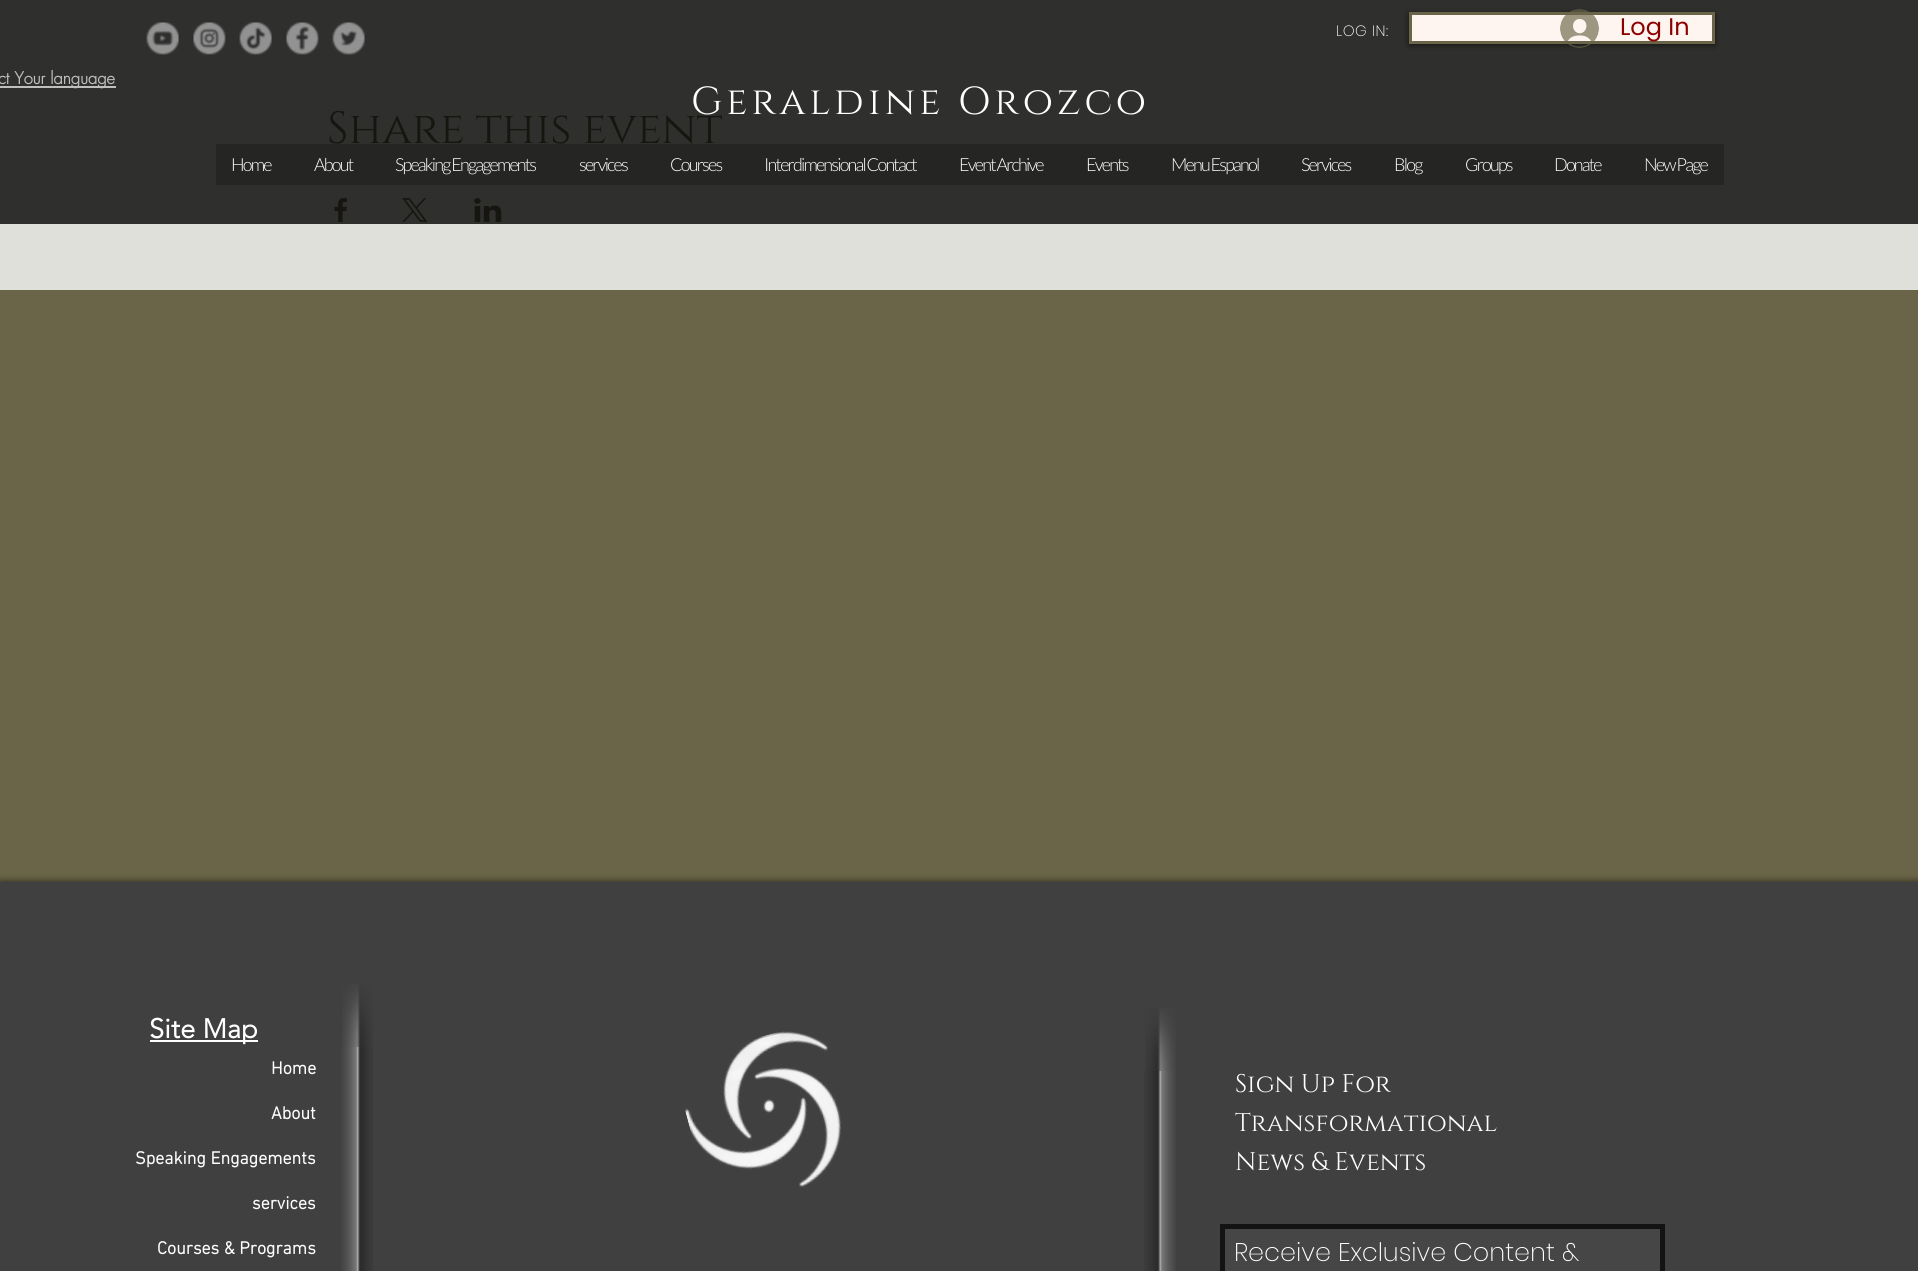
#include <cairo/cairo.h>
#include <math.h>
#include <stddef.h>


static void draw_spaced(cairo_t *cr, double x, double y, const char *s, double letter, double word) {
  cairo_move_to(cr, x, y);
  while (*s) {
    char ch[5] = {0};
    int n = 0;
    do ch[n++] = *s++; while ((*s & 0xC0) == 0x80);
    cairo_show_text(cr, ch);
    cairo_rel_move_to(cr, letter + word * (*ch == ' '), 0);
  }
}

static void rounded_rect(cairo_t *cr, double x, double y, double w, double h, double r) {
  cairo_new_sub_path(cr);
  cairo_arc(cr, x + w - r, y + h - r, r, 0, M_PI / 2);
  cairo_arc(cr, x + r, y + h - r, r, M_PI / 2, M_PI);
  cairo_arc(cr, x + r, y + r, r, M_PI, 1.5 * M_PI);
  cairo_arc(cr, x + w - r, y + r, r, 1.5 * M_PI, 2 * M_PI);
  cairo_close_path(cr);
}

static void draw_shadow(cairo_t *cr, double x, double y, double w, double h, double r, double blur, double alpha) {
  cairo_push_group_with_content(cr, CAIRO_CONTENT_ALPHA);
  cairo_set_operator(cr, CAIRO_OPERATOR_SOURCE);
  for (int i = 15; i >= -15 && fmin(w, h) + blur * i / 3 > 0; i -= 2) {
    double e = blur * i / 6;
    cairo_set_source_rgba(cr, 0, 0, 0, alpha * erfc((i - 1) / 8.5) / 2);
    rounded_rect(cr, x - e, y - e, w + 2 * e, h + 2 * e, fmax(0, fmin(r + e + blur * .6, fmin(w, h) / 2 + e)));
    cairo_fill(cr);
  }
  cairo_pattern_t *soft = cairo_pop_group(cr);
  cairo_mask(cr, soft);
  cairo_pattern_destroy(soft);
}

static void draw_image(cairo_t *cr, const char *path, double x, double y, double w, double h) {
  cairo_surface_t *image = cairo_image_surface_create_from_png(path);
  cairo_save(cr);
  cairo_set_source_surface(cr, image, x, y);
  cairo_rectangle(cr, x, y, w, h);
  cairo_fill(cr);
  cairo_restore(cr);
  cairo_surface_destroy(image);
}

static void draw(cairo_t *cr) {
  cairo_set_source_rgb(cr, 106 / 255.0, 101 / 255.0, 72 / 255.0);
  cairo_paint(cr);
  cairo_set_source_rgb(cr, 47 / 255.0, 47 / 255.0, 46 / 255.0);
  cairo_rectangle(cr, 0, 0, 1918, 224);
  cairo_fill(cr);
  draw_image(cr, "images/1.png", 146, 22, 33, 33);
  draw_image(cr, "images/2.png", 193, 22, 33, 33);
  draw_image(cr, "images/3.png", 239, 22, 33, 33);
  draw_image(cr, "images/4.png", 286, 22, 33, 33);
  draw_image(cr, "images/5.png", 332, 22, 33, 33);
  cairo_set_source_rgb(cr, 0, 0, 0);
  draw_shadow(cr, 1409, 14, 306, 31, 0, 3, 0.6);
  cairo_set_source_rgb(cr, 1, 245 / 255.0, 240 / 255.0);
  cairo_rectangle(cr, 1410.5, 13.5, 303, 29);
  cairo_fill_preserve(cr);
  cairo_set_source_rgb(cr, 106 / 255.0, 101 / 255.0, 72 / 255.0);
  cairo_set_line_width(cr, 3);
  cairo_stroke(cr);
  draw_image(cr, "images/6.png", 1560, 9, 39, 39);
  cairo_set_source_rgb(cr, 191 / 255.0, 191 / 255.0, 191 / 255.0);
  cairo_rectangle(cr, 0, 86, 116, 2);
  cairo_fill(cr);
  cairo_set_source_rgb(cr, 37 / 255.0, 37 / 255.0, 36 / 255.0);
  cairo_rectangle(cr, 216, 144, 1508, 41);
  cairo_fill(cr);
  cairo_set_source_rgb(cr, 224 / 255.0, 224 / 255.0, 219 / 255.0);
  cairo_rectangle(cr, 0, 224, 1918, 66);
  cairo_fill(cr);
  draw_image(cr, "images/7.png", 334, 198, 13, 24);
  draw_image(cr, "images/8.png", 402, 198, 26, 24);
  draw_image(cr, "images/9.png", 474, 198, 28, 24);
  cairo_set_source_rgb(cr, 0, 0, 0);
  draw_shadow(cr, 0, 882, 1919, 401, 0, 4, 0.7);
  cairo_set_source_rgb(cr, 64 / 255.0, 64 / 255.0, 64 / 255.0);
  cairo_rectangle(cr, 0, 882, 1918, 389);
  cairo_fill(cr);
  cairo_set_source_rgb(cr, 1, 1, 1);
  cairo_rectangle(cr, 150, 1040, 108, 2);
  cairo_fill(cr);
  draw_image(cr, "images/10.png", 341, 1047, 32, 224);
  draw_image(cr, "images/11.png", 342, 984, 31, 63);
  draw_image(cr, "images/12.png", 685, 1031, 157, 157);
  draw_image(cr, "images/13.png", 1144, 1071, 32, 200);
  draw_image(cr, "images/14.png", 1145, 1008, 31, 63);
  cairo_set_source_rgb(cr, 70 / 255.0, 70 / 255.0, 70 / 255.0);
  cairo_rectangle(cr, 1222.5, 1226.5, 440, 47);
  cairo_fill_preserve(cr);
  cairo_set_source_rgb(cr, 19 / 255.0, 19 / 255.0, 19 / 255.0);
  cairo_set_line_width(cr, 5);
  cairo_stroke(cr);
  cairo_select_font_face(cr, "Poppins ExtraLight", CAIRO_FONT_SLANT_NORMAL, CAIRO_FONT_WEIGHT_NORMAL);
  cairo_set_font_size(cr, 15);
  cairo_set_source_rgb(cr, 1, 1, 1);
  draw_spaced(cr, 1336, 36, "LOG IN:", 0.5, 0);
  cairo_select_font_face(cr, "Poppins", CAIRO_FONT_SLANT_NORMAL, CAIRO_FONT_WEIGHT_NORMAL);
  cairo_set_font_size(cr, 24);
  cairo_set_source_rgb(cr, 139 / 255.0, 0, 0);
  cairo_move_to(cr, 1620, 35);
  cairo_show_text(cr, "Log In");
  cairo_select_font_face(cr, "futura", CAIRO_FONT_SLANT_NORMAL, CAIRO_FONT_WEIGHT_BOLD);
  cairo_set_font_size(cr, 16.5);
  cairo_set_source_rgb(cr, 191 / 255.0, 191 / 255.0, 191 / 255.0);
  cairo_move_to(cr, -2, 84);
  cairo_show_text(cr, "ct Your language");
  cairo_select_font_face(cr, "Cinzel", CAIRO_FONT_SLANT_NORMAL, CAIRO_FONT_WEIGHT_NORMAL);
  cairo_set_font_size(cr, 39);
  cairo_set_source_rgb(cr, 1, 1, 1);
  draw_spaced(cr, 691, 114, "Geraldine Orozco", 3.9, 0);
  cairo_select_font_face(cr, "Lato Light", CAIRO_FONT_SLANT_NORMAL, CAIRO_FONT_WEIGHT_NORMAL);
  cairo_set_font_size(cr, 18);
  draw_spaced(cr, 231, 171, "Home", -1.8, 0);
  draw_spaced(cr, 314, 171, "About", -1.8, 0);
  draw_spaced(cr, 395, 171, "Speaking Engagements", -1.8, 0);
  draw_spaced(cr, 579, 171, "services", -1.8, 0);
  draw_spaced(cr, 670, 171, "Courses", -1.8, 0);
  draw_spaced(cr, 764, 171, "Interdimensional Contact", -1.8, 0);
  draw_spaced(cr, 959, 171, "Event Archive", -1.8, 0);
  draw_spaced(cr, 1086, 171, "Events", -1.8, 0);
  draw_spaced(cr, 1171, 171, "Menu Espanol", -1.8, 0);
  draw_spaced(cr, 1301, 171, "Services", -1.8, 0);
  draw_spaced(cr, 1394, 171, "Blog", -1.8, 0);
  draw_spaced(cr, 1465, 171, "Groups", -1.8, 0);
  draw_spaced(cr, 1554, 171, "Donate", -1.8, 0);
  draw_spaced(cr, 1644, 171, "New Page", -1.8, 0);
  cairo_select_font_face(cr, "Cinzel", CAIRO_FONT_SLANT_NORMAL, CAIRO_FONT_WEIGHT_NORMAL);
  cairo_set_font_size(cr, 45);
  cairo_set_source_rgb(cr, 22 / 255.0, 21 / 255.0, 15 / 255.0);
  cairo_move_to(cr, 327, 143);
  cairo_show_text(cr, "Share this event");
  cairo_select_font_face(cr, "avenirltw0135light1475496", CAIRO_FONT_SLANT_NORMAL, CAIRO_FONT_WEIGHT_BOLD);
  cairo_set_font_size(cr, 27);
  cairo_set_source_rgb(cr, 1, 1, 1);
  draw_spaced(cr, 149, 1038, "Site Map", 0.25, 0);
  cairo_select_font_face(cr, "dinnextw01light", CAIRO_FONT_SLANT_NORMAL, CAIRO_FONT_WEIGHT_BOLD);
  cairo_set_font_size(cr, 18);
  cairo_move_to(cr, 271, 1074);
  cairo_show_text(cr, "Home");
  cairo_move_to(cr, 271, 1119);
  cairo_show_text(cr, "About");
  cairo_move_to(cr, 135, 1164);
  cairo_show_text(cr, "Speaking Engagements");
  cairo_move_to(cr, 252, 1209);
  cairo_show_text(cr, "services");
  cairo_move_to(cr, 157, 1254);
  cairo_show_text(cr, "Courses & Programs");
  cairo_select_font_face(cr, "Cinzel", CAIRO_FONT_SLANT_NORMAL, CAIRO_FONT_WEIGHT_NORMAL);
  cairo_set_font_size(cr, 25.5);
  cairo_move_to(cr, 1235, 1092);
  cairo_show_text(cr, "Sign Up For");
  cairo_move_to(cr, 1235, 1131);
  cairo_show_text(cr, "Transformational");
  cairo_move_to(cr, 1235, 1170);
  cairo_show_text(cr, "News & Events");
  cairo_select_font_face(cr, "Poppins ExtraLight", CAIRO_FONT_SLANT_NORMAL, CAIRO_FONT_WEIGHT_NORMAL);
  cairo_move_to(cr, 1234, 1261);
  cairo_show_text(cr, "Receive Exclusive Content &");
}

int main(void) {
  cairo_surface_t *surface = cairo_image_surface_create(CAIRO_FORMAT_RGB24, 1918, 1271);
  cairo_t *cr = cairo_create(surface);
  cairo_font_options_t *options = cairo_font_options_create();
  cairo_font_options_set_hint_metrics(options, CAIRO_HINT_METRICS_OFF);
  cairo_font_options_set_hint_style(options, CAIRO_HINT_STYLE_NONE);
  cairo_set_font_options(cr, options);
  cairo_set_miter_limit(cr, 4);
  draw(cr);
  cairo_surface_write_to_png(surface, "out.png");
  cairo_font_options_destroy(options);
  cairo_destroy(cr);
  cairo_surface_destroy(surface);
  return 0;
}
